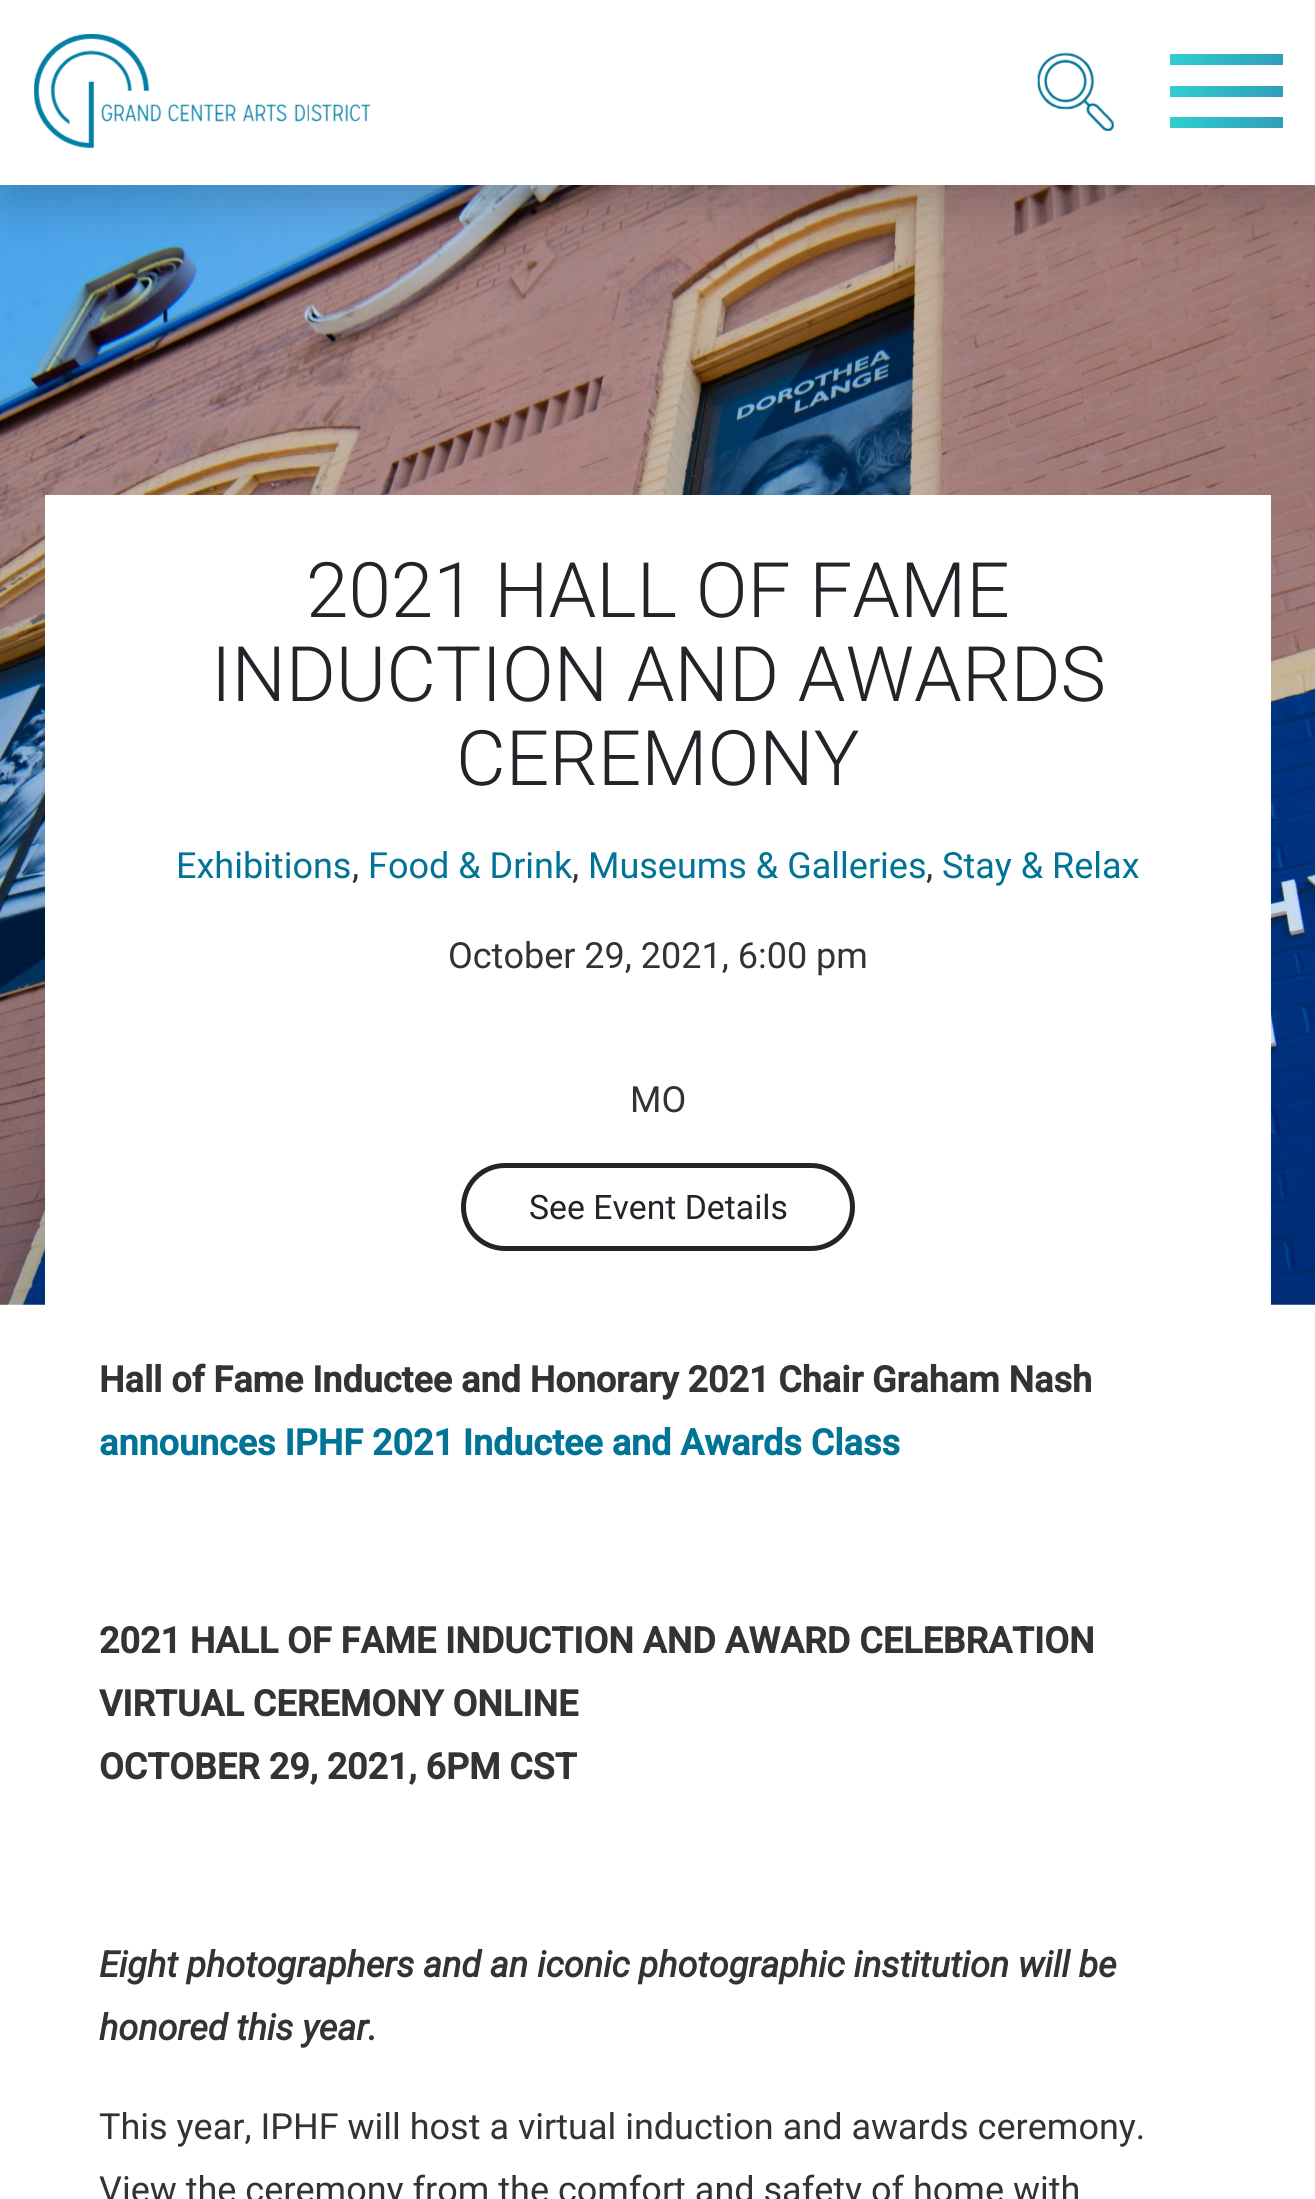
#include <cairo/cairo.h>
#include <math.h>
#include <stddef.h>


static void rounded_rect(cairo_t *cr, double x, double y, double w, double h, double r) {
  cairo_new_sub_path(cr);
  cairo_arc(cr, x + w - r, y + h - r, r, 0, M_PI / 2);
  cairo_arc(cr, x + r, y + h - r, r, M_PI / 2, M_PI);
  cairo_arc(cr, x + r, y + r, r, M_PI, 1.5 * M_PI);
  cairo_arc(cr, x + w - r, y + r, r, 1.5 * M_PI, 2 * M_PI);
  cairo_close_path(cr);
}

static void draw_shadow(cairo_t *cr, double x, double y, double w, double h, double r, double blur, double alpha) {
  cairo_push_group_with_content(cr, CAIRO_CONTENT_ALPHA);
  cairo_set_operator(cr, CAIRO_OPERATOR_SOURCE);
  for (int i = 15; i >= -15 && fmin(w, h) + blur * i / 3 > 0; i -= 2) {
    double e = blur * i / 6;
    cairo_set_source_rgba(cr, 0, 0, 0, alpha * erfc((i - 1) / 8.5) / 2);
    rounded_rect(cr, x - e, y - e, w + 2 * e, h + 2 * e, fmax(0, fmin(r + e + blur * .6, fmin(w, h) / 2 + e)));
    cairo_fill(cr);
  }
  cairo_pattern_t *soft = cairo_pop_group(cr);
  cairo_mask(cr, soft);
  cairo_pattern_destroy(soft);
}

static void draw_image(cairo_t *cr, const char *path, double x, double y, double w, double h) {
  cairo_surface_t *image = cairo_image_surface_create_from_png(path);
  cairo_save(cr);
  cairo_set_source_surface(cr, image, x, y);
  cairo_rectangle(cr, x, y, w, h);
  cairo_fill(cr);
  cairo_restore(cr);
  cairo_surface_destroy(image);
}

static void draw(cairo_t *cr) {
  cairo_pattern_t *gradient;
  cairo_set_source_rgb(cr, 1, 1, 1);
  cairo_paint(cr);
  draw_image(cr, "images/3.png", 0, 185, 1315, 1120);
  cairo_set_source_rgb(cr, 0, 0, 0);
  draw_shadow(cr, 5, 18, 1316, 185, 0, 25, 0.2);
  cairo_set_source_rgb(cr, 1, 1, 1);
  cairo_rectangle(cr, 0, 0, 1315, 185);
  cairo_fill(cr);
  draw_image(cr, "images/1.png", 34, 34, 337, 115);
  draw_image(cr, "images/2.png", 1037, 52, 77, 80);
  gradient = cairo_pattern_create_linear(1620, 76, 1170, 77);
  cairo_pattern_add_color_stop_rgba(gradient, 0, 51 / 255.0, 8 / 255.0, 118 / 255.0, 1);
  cairo_pattern_add_color_stop_rgba(gradient, 1, 48 / 255.0, 207 / 255.0, 208 / 255.0, 1);
  cairo_set_source(cr, gradient);
  cairo_pattern_destroy(gradient);
  cairo_rectangle(cr, 1170, 54, 113, 11);
  cairo_fill(cr);
  gradient = cairo_pattern_create_linear(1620, 108, 1170, 108);
  cairo_pattern_add_color_stop_rgba(gradient, 0, 51 / 255.0, 8 / 255.0, 118 / 255.0, 1);
  cairo_pattern_add_color_stop_rgba(gradient, 1, 48 / 255.0, 207 / 255.0, 208 / 255.0, 1);
  cairo_set_source(cr, gradient);
  cairo_pattern_destroy(gradient);
  cairo_rectangle(cr, 1170, 86, 113, 11);
  cairo_fill(cr);
  gradient = cairo_pattern_create_linear(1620, 139, 1170, 140);
  cairo_pattern_add_color_stop_rgba(gradient, 0, 51 / 255.0, 8 / 255.0, 118 / 255.0, 1);
  cairo_pattern_add_color_stop_rgba(gradient, 1, 48 / 255.0, 207 / 255.0, 208 / 255.0, 1);
  cairo_set_source(cr, gradient);
  cairo_pattern_destroy(gradient);
  cairo_rectangle(cr, 1170, 117, 113, 11);
  cairo_fill(cr);
  cairo_set_source_rgb(cr, 1, 1, 1);
  cairo_rectangle(cr, 45, 495, 1226, 810);
  cairo_fill(cr);
  rounded_rect(cr, 463.5, 1165.5, 389, 83, 41.5);
  cairo_set_source_rgb(cr, 33 / 255.0, 37 / 255.0, 41 / 255.0);
  cairo_set_line_width(cr, 5);
  cairo_stroke(cr);
  cairo_select_font_face(cr, "Roboto Light", CAIRO_FONT_SLANT_NORMAL, CAIRO_FONT_WEIGHT_NORMAL);
  cairo_set_font_size(cr, 76.5);
  cairo_move_to(cr, 306, 617);
  cairo_show_text(cr, "2021 HALL OF FAME");
  cairo_move_to(cr, 211, 701);
  cairo_show_text(cr, "INDUCTION AND AWARDS");
  cairo_move_to(cr, 456, 785);
  cairo_show_text(cr, "CEREMONY");
  cairo_select_font_face(cr, "Roboto", CAIRO_FONT_SLANT_NORMAL, CAIRO_FONT_WEIGHT_NORMAL);
  cairo_set_font_size(cr, 36);
  cairo_set_source_rgb(cr, 0, 115 / 255.0, 150 / 255.0);
  cairo_move_to(cr, 176, 878);
  cairo_show_text(cr, "Exhibitions");
  cairo_set_source_rgb(cr, 51 / 255.0, 51 / 255.0, 51 / 255.0);
  cairo_move_to(cr, 352, 878);
  cairo_show_text(cr, ",");
  cairo_set_source_rgb(cr, 0, 115 / 255.0, 150 / 255.0);
  cairo_move_to(cr, 368, 878);
  cairo_show_text(cr, "Food & Drink");
  cairo_set_source_rgb(cr, 51 / 255.0, 51 / 255.0, 51 / 255.0);
  cairo_move_to(cr, 572, 878);
  cairo_show_text(cr, ",");
  cairo_set_source_rgb(cr, 0, 115 / 255.0, 150 / 255.0);
  cairo_move_to(cr, 588, 878);
  cairo_show_text(cr, "Museums & Galleries");
  cairo_set_source_rgb(cr, 51 / 255.0, 51 / 255.0, 51 / 255.0);
  cairo_move_to(cr, 926, 878);
  cairo_show_text(cr, ",");
  cairo_set_source_rgb(cr, 0, 115 / 255.0, 150 / 255.0);
  cairo_move_to(cr, 942, 878);
  cairo_show_text(cr, "Stay & Relax");
  cairo_set_source_rgb(cr, 51 / 255.0, 51 / 255.0, 51 / 255.0);
  cairo_move_to(cr, 448, 968);
  cairo_show_text(cr, "October 29, 2021, 6:00 pm");
  cairo_move_to(cr, 630, 1112);
  cairo_show_text(cr, "MO");
  cairo_set_font_size(cr, 33.75);
  cairo_set_source_rgb(cr, 33 / 255.0, 37 / 255.0, 41 / 255.0);
  cairo_move_to(cr, 529, 1219);
  cairo_show_text(cr, "See Event Details");
  cairo_select_font_face(cr, "Roboto", CAIRO_FONT_SLANT_NORMAL, CAIRO_FONT_WEIGHT_BOLD);
  cairo_set_font_size(cr, 36);
  cairo_set_source_rgb(cr, 51 / 255.0, 51 / 255.0, 51 / 255.0);
  cairo_move_to(cr, 99, 1392);
  cairo_show_text(cr, "Hall of Fame Inductee and Honorary 2021 Chair Graham Nash");
  cairo_set_source_rgb(cr, 0, 115 / 255.0, 150 / 255.0);
  cairo_move_to(cr, 99, 1455);
  cairo_show_text(cr, "announces IPHF 2021 Inductee and Awards Class");
  cairo_set_source_rgb(cr, 51 / 255.0, 51 / 255.0, 51 / 255.0);
  cairo_move_to(cr, 99, 1653);
  cairo_show_text(cr, "2021 HALL OF FAME INDUCTION AND AWARD CELEBRATION");
  cairo_move_to(cr, 99, 1716);
  cairo_show_text(cr, "VIRTUAL CEREMONY ONLINE");
  cairo_move_to(cr, 99, 1779);
  cairo_show_text(cr, "OCTOBER 29, 2021, 6PM CST");
  cairo_select_font_face(cr, "Roboto", CAIRO_FONT_SLANT_ITALIC, CAIRO_FONT_WEIGHT_BOLD);
  cairo_move_to(cr, 99, 1977);
  cairo_show_text(cr, "Eight photographers and an iconic photographic institution will be");
  cairo_move_to(cr, 99, 2040);
  cairo_show_text(cr, "honored this year.");
  cairo_select_font_face(cr, "Roboto", CAIRO_FONT_SLANT_NORMAL, CAIRO_FONT_WEIGHT_NORMAL);
  cairo_move_to(cr, 99, 2139);
  cairo_show_text(cr, "This year, IPHF will host a virtual induction and awards ceremony.");
  cairo_move_to(cr, 99, 2202);
  cairo_show_text(cr, "View the ceremony from the comfort and safety of home with");
}

int main(void) {
  cairo_surface_t *surface = cairo_image_surface_create(CAIRO_FORMAT_RGB24, 1315, 2199);
  cairo_t *cr = cairo_create(surface);
  cairo_font_options_t *options = cairo_font_options_create();
  cairo_font_options_set_hint_metrics(options, CAIRO_HINT_METRICS_OFF);
  cairo_font_options_set_hint_style(options, CAIRO_HINT_STYLE_NONE);
  cairo_set_font_options(cr, options);
  cairo_set_miter_limit(cr, 4);
  draw(cr);
  cairo_surface_write_to_png(surface, "out.png");
  cairo_font_options_destroy(options);
  cairo_destroy(cr);
  cairo_surface_destroy(surface);
  return 0;
}
